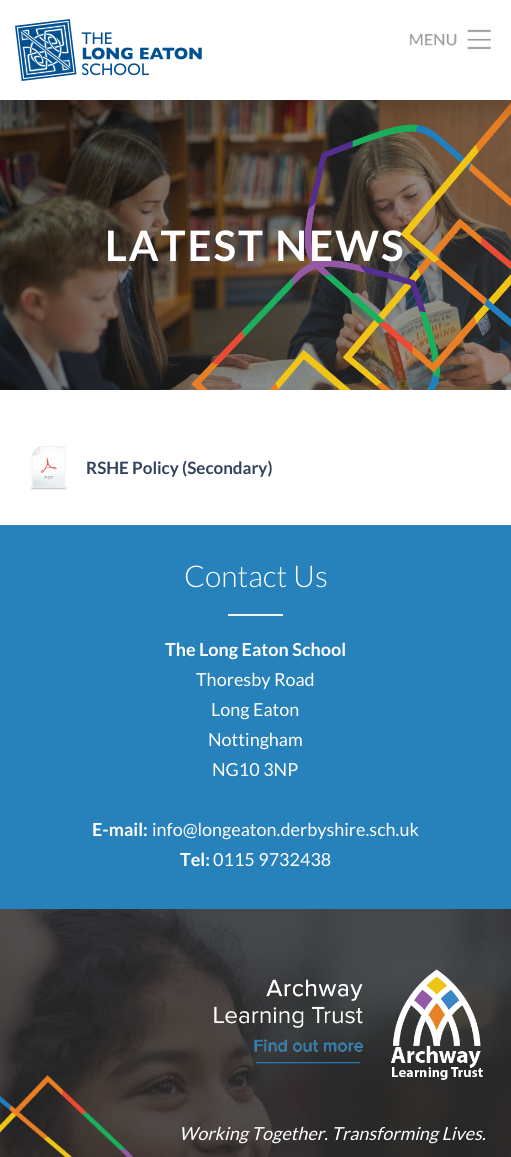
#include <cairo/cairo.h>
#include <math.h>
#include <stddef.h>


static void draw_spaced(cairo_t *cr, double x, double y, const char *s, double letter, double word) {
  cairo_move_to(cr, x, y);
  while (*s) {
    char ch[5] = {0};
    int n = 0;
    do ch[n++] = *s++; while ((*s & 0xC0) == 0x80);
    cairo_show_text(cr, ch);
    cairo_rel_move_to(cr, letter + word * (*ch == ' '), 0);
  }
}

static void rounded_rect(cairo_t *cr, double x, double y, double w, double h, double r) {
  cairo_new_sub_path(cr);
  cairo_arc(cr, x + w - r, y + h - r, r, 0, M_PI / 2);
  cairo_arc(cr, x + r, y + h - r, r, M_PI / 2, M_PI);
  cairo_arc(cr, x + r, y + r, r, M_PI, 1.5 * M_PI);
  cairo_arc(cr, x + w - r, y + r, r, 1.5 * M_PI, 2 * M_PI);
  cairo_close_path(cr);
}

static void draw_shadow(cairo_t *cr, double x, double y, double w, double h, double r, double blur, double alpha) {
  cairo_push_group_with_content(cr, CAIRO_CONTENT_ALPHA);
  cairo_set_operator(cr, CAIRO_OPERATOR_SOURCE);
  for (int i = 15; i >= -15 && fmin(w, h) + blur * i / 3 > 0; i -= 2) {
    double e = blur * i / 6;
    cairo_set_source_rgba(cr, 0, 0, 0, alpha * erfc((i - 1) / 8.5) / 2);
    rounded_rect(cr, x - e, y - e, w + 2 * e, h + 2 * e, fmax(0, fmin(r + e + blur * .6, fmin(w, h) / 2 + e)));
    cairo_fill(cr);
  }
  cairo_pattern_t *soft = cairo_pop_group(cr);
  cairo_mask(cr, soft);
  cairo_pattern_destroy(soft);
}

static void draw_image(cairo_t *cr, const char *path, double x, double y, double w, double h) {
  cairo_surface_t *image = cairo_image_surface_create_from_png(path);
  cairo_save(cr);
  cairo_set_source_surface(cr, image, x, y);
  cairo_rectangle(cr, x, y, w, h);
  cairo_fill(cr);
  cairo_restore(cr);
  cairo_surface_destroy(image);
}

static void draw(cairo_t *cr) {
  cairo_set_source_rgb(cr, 1, 1, 1);
  cairo_paint(cr);
  draw_image(cr, "images/3.png", 0, 100, 511, 290);
  cairo_set_source_rgb(cr, 0, 0, 0);
  draw_shadow(cr, 0, 4, 511, 100, 0, 15, 0.25);
  cairo_set_source_rgb(cr, 1, 1, 1);
  cairo_rectangle(cr, 0, 0, 511, 100);
  cairo_fill(cr);
  draw_image(cr, "images/1.png", 409, 29, 82, 21);
  draw_image(cr, "images/2.png", 15, 19, 187, 62);
  draw_image(cr, "images/4.png", 30, 446, 37, 44);
  cairo_set_source_rgb(cr, 39 / 255.0, 129 / 255.0, 187 / 255.0);
  cairo_rectangle(cr, 0, 525, 511, 384);
  cairo_fill(cr);
  cairo_set_source_rgb(cr, 243 / 255.0, 244 / 255.0, 245 / 255.0);
  cairo_rectangle(cr, 228, 614, 55, 2);
  cairo_fill(cr);
  draw_image(cr, "images/5.png", 0, 909, 511, 248);
  draw_image(cr, "images/6.png", 214, 969, 269, 111);
  cairo_select_font_face(cr, "Lato", CAIRO_FONT_SLANT_NORMAL, CAIRO_FONT_WEIGHT_BOLD);
  cairo_set_font_size(cr, 42);
  cairo_set_source_rgb(cr, 1, 1, 1);
  draw_spaced(cr, 105, 261, "LATEST NEWS", 2, 0);
  cairo_set_font_size(cr, 17);
  cairo_set_source_rgb(cr, 50 / 255.0, 66 / 255.0, 92 / 255.0);
  cairo_move_to(cr, 86, 474);
  cairo_show_text(cr, "RSHE Policy (Secondary)");
  cairo_select_font_face(cr, "Lato Light", CAIRO_FONT_SLANT_NORMAL, CAIRO_FONT_WEIGHT_NORMAL);
  cairo_set_font_size(cr, 30);
  cairo_set_source_rgb(cr, 1, 1, 1);
  cairo_move_to(cr, 184, 587);
  cairo_show_text(cr, "Contact Us");
  cairo_select_font_face(cr, "Lato", CAIRO_FONT_SLANT_NORMAL, CAIRO_FONT_WEIGHT_BOLD);
  cairo_set_font_size(cr, 18);
  cairo_move_to(cr, 165, 656);
  cairo_show_text(cr, "The Long Eaton School");
  cairo_select_font_face(cr, "Lato", CAIRO_FONT_SLANT_NORMAL, CAIRO_FONT_WEIGHT_NORMAL);
  cairo_move_to(cr, 196, 686);
  cairo_show_text(cr, "Thoresby Road");
  cairo_move_to(cr, 211, 716);
  cairo_show_text(cr, "Long Eaton");
  cairo_move_to(cr, 208, 746);
  cairo_show_text(cr, "Nottingham");
  cairo_move_to(cr, 212, 776);
  cairo_show_text(cr, "NG10 3NP");
  cairo_select_font_face(cr, "Lato", CAIRO_FONT_SLANT_NORMAL, CAIRO_FONT_WEIGHT_BOLD);
  cairo_move_to(cr, 92, 836);
  cairo_show_text(cr, "E-mail:");
  cairo_select_font_face(cr, "Lato", CAIRO_FONT_SLANT_NORMAL, CAIRO_FONT_WEIGHT_NORMAL);
  cairo_move_to(cr, 152, 836);
  cairo_show_text(cr, "info@longeaton.derbyshire.sch.uk");
  cairo_select_font_face(cr, "Lato", CAIRO_FONT_SLANT_NORMAL, CAIRO_FONT_WEIGHT_BOLD);
  cairo_move_to(cr, 180, 866);
  cairo_show_text(cr, "Tel:");
  cairo_select_font_face(cr, "Lato", CAIRO_FONT_SLANT_NORMAL, CAIRO_FONT_WEIGHT_NORMAL);
  cairo_move_to(cr, 213, 866);
  cairo_show_text(cr, "0115 9732438");
  cairo_select_font_face(cr, "Lato", CAIRO_FONT_SLANT_ITALIC, CAIRO_FONT_WEIGHT_NORMAL);
  cairo_move_to(cr, 179, 1140);
  cairo_show_text(cr, "Working Together. Transforming Lives.");
}

int main(void) {
  cairo_surface_t *surface = cairo_image_surface_create(CAIRO_FORMAT_RGB24, 511, 1157);
  cairo_t *cr = cairo_create(surface);
  cairo_font_options_t *options = cairo_font_options_create();
  cairo_font_options_set_hint_metrics(options, CAIRO_HINT_METRICS_OFF);
  cairo_font_options_set_hint_style(options, CAIRO_HINT_STYLE_NONE);
  cairo_set_font_options(cr, options);
  cairo_set_miter_limit(cr, 4);
  draw(cr);
  cairo_surface_write_to_png(surface, "out.png");
  cairo_font_options_destroy(options);
  cairo_destroy(cr);
  cairo_surface_destroy(surface);
  return 0;
}
